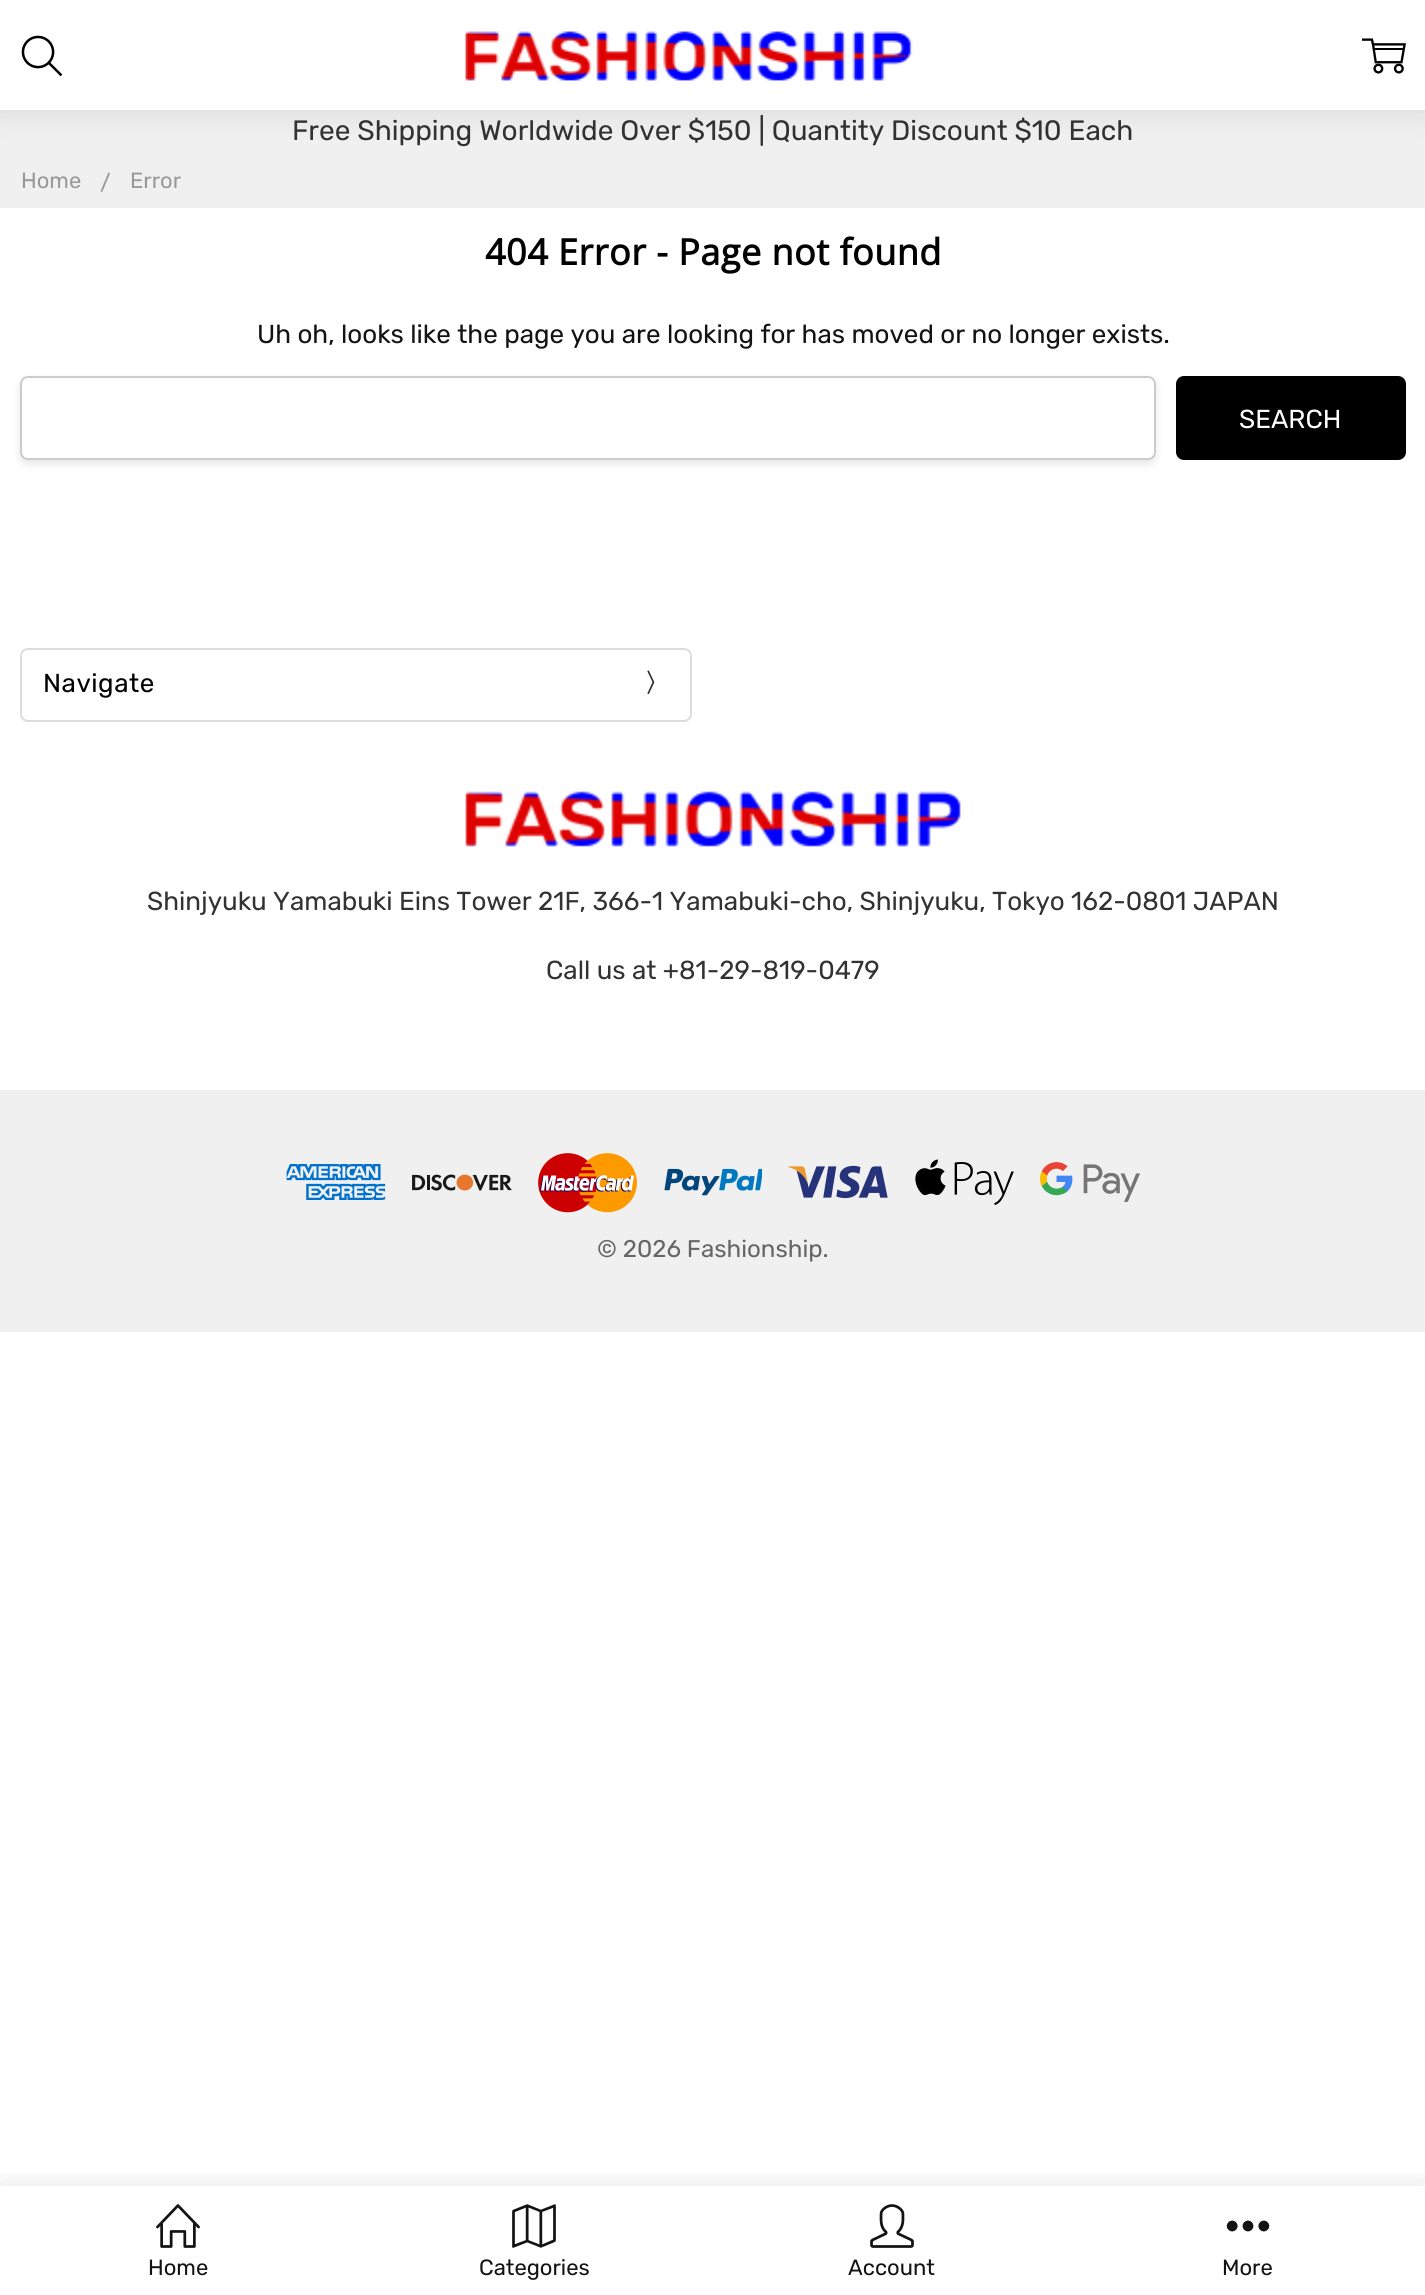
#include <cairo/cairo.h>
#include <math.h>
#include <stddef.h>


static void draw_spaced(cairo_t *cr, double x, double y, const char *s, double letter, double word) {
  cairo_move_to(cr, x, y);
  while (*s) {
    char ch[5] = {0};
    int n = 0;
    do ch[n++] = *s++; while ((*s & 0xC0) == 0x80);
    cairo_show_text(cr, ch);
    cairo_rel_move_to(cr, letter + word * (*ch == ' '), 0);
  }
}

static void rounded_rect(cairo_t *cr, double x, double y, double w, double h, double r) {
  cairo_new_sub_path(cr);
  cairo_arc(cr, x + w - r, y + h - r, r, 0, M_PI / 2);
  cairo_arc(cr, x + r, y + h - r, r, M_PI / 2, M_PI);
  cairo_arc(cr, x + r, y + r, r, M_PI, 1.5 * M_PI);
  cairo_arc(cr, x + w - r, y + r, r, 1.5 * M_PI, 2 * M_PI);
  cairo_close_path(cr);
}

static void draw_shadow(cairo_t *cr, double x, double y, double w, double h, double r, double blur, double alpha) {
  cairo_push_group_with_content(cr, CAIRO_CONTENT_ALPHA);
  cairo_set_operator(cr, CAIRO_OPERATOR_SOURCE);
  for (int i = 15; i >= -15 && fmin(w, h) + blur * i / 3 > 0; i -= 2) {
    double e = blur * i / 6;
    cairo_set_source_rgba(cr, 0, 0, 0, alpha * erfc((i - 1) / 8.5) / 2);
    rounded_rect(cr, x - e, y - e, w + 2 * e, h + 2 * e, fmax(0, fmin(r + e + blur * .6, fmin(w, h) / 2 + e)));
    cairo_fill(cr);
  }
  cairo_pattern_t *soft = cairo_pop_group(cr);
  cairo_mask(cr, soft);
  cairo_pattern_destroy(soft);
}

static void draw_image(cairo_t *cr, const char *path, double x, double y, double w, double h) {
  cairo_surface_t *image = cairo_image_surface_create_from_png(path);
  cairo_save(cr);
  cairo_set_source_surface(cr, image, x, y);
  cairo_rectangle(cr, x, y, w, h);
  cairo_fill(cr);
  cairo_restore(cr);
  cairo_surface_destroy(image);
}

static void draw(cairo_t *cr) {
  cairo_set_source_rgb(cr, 1, 1, 1);
  cairo_paint(cr);
  cairo_set_source_rgb(cr, 240 / 255.0, 240 / 255.0, 240 / 255.0);
  cairo_rectangle(cr, 0, 112, 1425, 96);
  cairo_fill(cr);
  cairo_set_source_rgb(cr, 0, 0, 0);
  draw_shadow(cr, 0, 0, 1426, 112, 0, 15, 0.1);
  cairo_set_source_rgb(cr, 1, 1, 1);
  cairo_rectangle(cr, 0, 0, 1425, 110);
  cairo_fill(cr);
  cairo_set_source_rgb(cr, 229 / 255.0, 229 / 255.0, 229 / 255.0);
  cairo_rectangle(cr, 0, 110, 1425, 2);
  cairo_fill(cr);
  draw_image(cr, "images/1.png", 465, 31, 448, 50);
  draw_image(cr, "images/2.png", 21, 35, 42, 42);
  draw_image(cr, "images/3.png", 1362, 38, 44, 36);
  cairo_set_source_rgb(cr, 0, 0, 0);
  draw_shadow(cr, 20, 380, 1136, 84, 8, 4, 0.1);
  cairo_set_source_rgb(cr, 1, 1, 1);
  rounded_rect(cr, 21, 377, 1134, 82, 7);
  cairo_fill_preserve(cr);
  cairo_set_source_rgb(cr, 204 / 255.0, 204 / 255.0, 204 / 255.0);
  cairo_stroke(cr);
  cairo_set_source_rgb(cr, 0, 0, 0);
  rounded_rect(cr, 1177, 377, 228, 82, 7);
  cairo_fill_preserve(cr);
  cairo_stroke(cr);
  rounded_rect(cr, 21, 649, 670, 72, 7);
  cairo_set_source_rgb(cr, 221 / 255.0, 221 / 255.0, 221 / 255.0);
  cairo_stroke(cr);
  draw_image(cr, "images/4.png", 465, 791, 496, 56);
  cairo_set_source_rgb(cr, 240 / 255.0, 240 / 255.0, 240 / 255.0);
  cairo_rectangle(cr, 0, 1090, 1425, 242);
  cairo_fill(cr);
  draw_image(cr, "images/5.png", 286, 1164, 100, 36);
  draw_image(cr, "images/6.png", 412, 1174, 100, 17);
  draw_image(cr, "images/7.png", 538, 1153, 99, 60);
  draw_image(cr, "images/8.png", 664, 1168, 98, 28);
  draw_image(cr, "images/9.png", 788, 1165, 100, 34);
  draw_image(cr, "images/10.png", 915, 1159, 99, 46);
  draw_image(cr, "images/11.png", 1040, 1162, 100, 40);
  cairo_save(cr);
  cairo_rectangle(cr, 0, 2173, 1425, 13);
  cairo_clip(cr);
  cairo_set_source_rgb(cr, 0, 0, 0);
  draw_shadow(cr, 0, 2186, 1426, 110, 0, 15, 0.1);
  cairo_restore(cr);
  draw_image(cr, "images/12.png", 156, 2204, 44, 44);
  draw_image(cr, "images/13.png", 512, 2204, 44, 44);
  draw_image(cr, "images/14.png", 870, 2204, 44, 44);
  draw_image(cr, "images/15.png", 1226, 2220, 44, 12);
  cairo_select_font_face(cr, "Rubik Light", CAIRO_FONT_SLANT_NORMAL, CAIRO_FONT_WEIGHT_NORMAL);
  cairo_set_font_size(cr, 28);
  cairo_set_source_rgb(cr, 50 / 255.0, 50 / 255.0, 50 / 255.0);
  cairo_move_to(cr, 292, 140);
  cairo_show_text(cr, "Free Shipping Worldwide Over $150 | Quantity Discount $10 Each");
  cairo_set_font_size(cr, 22);
  cairo_set_source_rgb(cr, 153 / 255.0, 153 / 255.0, 153 / 255.0);
  cairo_move_to(cr, 21, 188);
  cairo_show_text(cr, "Home");
  cairo_move_to(cr, 100, 190);
  cairo_show_text(cr, "/");
  cairo_move_to(cr, 130, 188);
  cairo_show_text(cr, "Error");
  cairo_select_font_face(cr, "Open Sans", CAIRO_FONT_SLANT_NORMAL, CAIRO_FONT_WEIGHT_BOLD);
  cairo_set_font_size(cr, 36);
  cairo_set_source_rgb(cr, 0, 0, 0);
  draw_spaced(cr, 485, 265, "404 Error - Page not found", 0.5, 0);
  cairo_select_font_face(cr, "Rubik Light", CAIRO_FONT_SLANT_NORMAL, CAIRO_FONT_WEIGHT_NORMAL);
  cairo_set_font_size(cr, 26);
  cairo_set_source_rgb(cr, 19 / 255.0, 19 / 255.0, 19 / 255.0);
  cairo_move_to(cr, 257, 343);
  cairo_show_text(cr, "Uh oh, looks like the page you are looking for has moved or no longer exists.");
  cairo_set_source_rgb(cr, 1, 1, 1);
  cairo_move_to(cr, 1239, 428);
  cairo_show_text(cr, "SEARCH");
  cairo_set_source_rgb(cr, 0, 0, 0);
  draw_spaced(cr, 43, 692, "Navigate", 0.5, 0);
  cairo_select_font_face(cr, "WenQuanYi Zen Hei", CAIRO_FONT_SLANT_NORMAL, CAIRO_FONT_WEIGHT_BOLD);
  cairo_set_source_rgb(cr, 50 / 255.0, 50 / 255.0, 50 / 255.0);
  draw_spaced(cr, 644, 692, "〉", 0.5, 0);
  cairo_select_font_face(cr, "Rubik Light", CAIRO_FONT_SLANT_NORMAL, CAIRO_FONT_WEIGHT_NORMAL);
  cairo_move_to(cr, 147, 910);
  cairo_show_text(cr, "Shinjyuku Yamabuki Eins Tower 21F, 366-1 Yamabuki-cho, Shinjyuku, Tokyo 162-0801 JAPAN");
  cairo_move_to(cr, 546, 979);
  cairo_show_text(cr, "Call us at +81-29-819-0479");
  cairo_set_font_size(cr, 24.1);
  cairo_set_source_rgb(cr, 102 / 255.0, 102 / 255.0, 102 / 255.0);
  cairo_move_to(cr, 597, 1257);
  cairo_show_text(cr, "© 2026 Fashionship.");
  cairo_set_font_size(cr, 22);
  cairo_set_source_rgb(cr, 19 / 255.0, 19 / 255.0, 19 / 255.0);
  cairo_move_to(cr, 148, 2275);
  cairo_show_text(cr, "Home");
  cairo_move_to(cr, 479, 2275);
  cairo_show_text(cr, "Categories");
  cairo_move_to(cr, 848, 2275);
  cairo_show_text(cr, "Account");
  cairo_move_to(cr, 1222, 2275);
  cairo_show_text(cr, "More");
}

int main(void) {
  cairo_surface_t *surface = cairo_image_surface_create(CAIRO_FORMAT_RGB24, 1425, 2295);
  cairo_t *cr = cairo_create(surface);
  cairo_font_options_t *options = cairo_font_options_create();
  cairo_font_options_set_hint_metrics(options, CAIRO_HINT_METRICS_OFF);
  cairo_font_options_set_hint_style(options, CAIRO_HINT_STYLE_NONE);
  cairo_set_font_options(cr, options);
  cairo_set_miter_limit(cr, 4);
  draw(cr);
  cairo_surface_write_to_png(surface, "out.png");
  cairo_font_options_destroy(options);
  cairo_destroy(cr);
  cairo_surface_destroy(surface);
  return 0;
}
